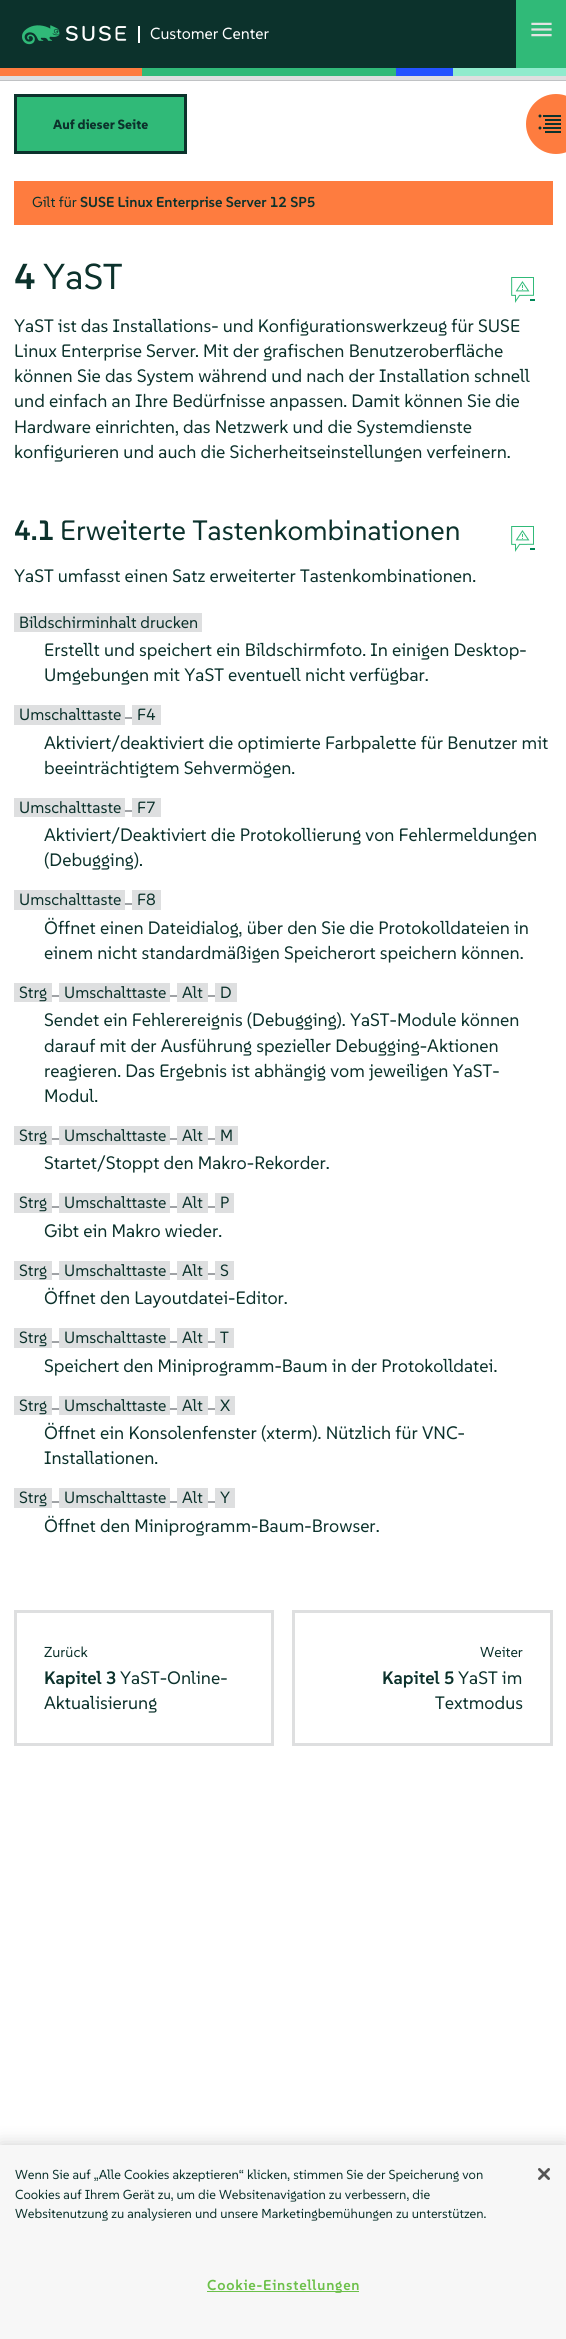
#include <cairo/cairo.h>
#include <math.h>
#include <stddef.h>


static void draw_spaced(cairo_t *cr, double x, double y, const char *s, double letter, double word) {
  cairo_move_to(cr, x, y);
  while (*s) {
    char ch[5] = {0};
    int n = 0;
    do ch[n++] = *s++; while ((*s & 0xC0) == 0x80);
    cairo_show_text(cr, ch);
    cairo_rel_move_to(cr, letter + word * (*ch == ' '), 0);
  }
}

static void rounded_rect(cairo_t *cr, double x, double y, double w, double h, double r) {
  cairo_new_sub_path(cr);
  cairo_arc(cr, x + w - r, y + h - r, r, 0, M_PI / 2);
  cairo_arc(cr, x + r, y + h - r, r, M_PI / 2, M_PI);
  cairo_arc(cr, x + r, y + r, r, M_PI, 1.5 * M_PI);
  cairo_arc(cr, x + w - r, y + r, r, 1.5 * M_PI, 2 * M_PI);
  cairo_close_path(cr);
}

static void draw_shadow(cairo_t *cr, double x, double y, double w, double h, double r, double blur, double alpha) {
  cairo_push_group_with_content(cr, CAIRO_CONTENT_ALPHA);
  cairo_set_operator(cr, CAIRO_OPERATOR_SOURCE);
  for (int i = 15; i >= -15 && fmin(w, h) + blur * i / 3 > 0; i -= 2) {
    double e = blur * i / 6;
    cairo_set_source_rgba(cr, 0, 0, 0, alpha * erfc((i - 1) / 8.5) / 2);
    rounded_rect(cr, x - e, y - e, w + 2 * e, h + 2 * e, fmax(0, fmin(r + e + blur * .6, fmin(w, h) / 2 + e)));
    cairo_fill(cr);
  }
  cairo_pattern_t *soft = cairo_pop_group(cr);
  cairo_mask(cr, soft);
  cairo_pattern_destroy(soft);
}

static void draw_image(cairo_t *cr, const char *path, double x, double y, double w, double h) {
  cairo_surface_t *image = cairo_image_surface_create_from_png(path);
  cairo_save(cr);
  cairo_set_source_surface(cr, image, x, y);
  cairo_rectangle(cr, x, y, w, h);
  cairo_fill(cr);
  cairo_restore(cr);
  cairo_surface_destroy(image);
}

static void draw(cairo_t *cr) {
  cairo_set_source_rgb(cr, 1, 1, 1);
  cairo_paint(cr);
  cairo_set_source_rgb(cr, 12 / 255.0, 50 / 255.0, 44 / 255.0);
  cairo_rectangle(cr, 0, 0, 516, 68);
  cairo_fill(cr);
  draw_image(cr, "images/1.png", 22, 25, 105, 20);
  cairo_set_source_rgb(cr, 1, 1, 1);
  cairo_rectangle(cr, 138, 26, 2, 17);
  cairo_fill(cr);
  cairo_set_source_rgb(cr, 48 / 255.0, 186 / 255.0, 120 / 255.0);
  cairo_rectangle(cr, 516, 0, 50, 68);
  cairo_fill(cr);
  draw_image(cr, "images/2.png", 531, 22, 21, 15);
  cairo_set_source_rgb(cr, 254 / 255.0, 124 / 255.0, 63 / 255.0);
  cairo_rectangle(cr, 0, 68, 142, 8);
  cairo_fill(cr);
  cairo_set_source_rgb(cr, 48 / 255.0, 186 / 255.0, 120 / 255.0);
  cairo_rectangle(cr, 142, 68, 254, 8);
  cairo_fill(cr);
  cairo_set_source_rgb(cr, 36 / 255.0, 83 / 255.0, 1);
  cairo_rectangle(cr, 396, 68, 57, 8);
  cairo_fill(cr);
  cairo_set_source_rgb(cr, 144 / 255.0, 235 / 255.0, 205 / 255.0);
  cairo_rectangle(cr, 453, 68, 113, 8);
  cairo_fill(cr);
  cairo_set_source_rgb(cr, 222 / 255.0, 223 / 255.0, 224 / 255.0);
  cairo_rectangle(cr, 0, 76, 566, 4);
  cairo_fill(cr);
  cairo_set_source_rgb(cr, 192 / 255.0, 194 / 255.0, 196 / 255.0);
  cairo_rectangle(cr, 0, 80, 566, 1);
  cairo_fill(cr);
  cairo_set_source_rgb(cr, 48 / 255.0, 186 / 255.0, 120 / 255.0);
  cairo_rectangle(cr, 15.5, 95.5, 170, 57);
  cairo_fill_preserve(cr);
  cairo_set_source_rgb(cr, 12 / 255.0, 50 / 255.0, 44 / 255.0);
  cairo_set_line_width(cr, 3);
  cairo_stroke(cr);
  cairo_set_source_rgb(cr, 254 / 255.0, 124 / 255.0, 63 / 255.0);
  cairo_rectangle(cr, 14, 181, 539, 44);
  cairo_fill(cr);
  draw_image(cr, "images/3.png", 511, 277, 23, 26);
  cairo_set_source_rgb(cr, 0, 134 / 255.0, 87 / 255.0);
  cairo_rectangle(cr, 530, 299, 5, 2);
  cairo_fill(cr);
  draw_image(cr, "images/3.png", 511, 526, 23, 26);
  cairo_rectangle(cr, 530, 548, 5, 2);
  cairo_fill(cr);
  cairo_set_source_rgb(cr, 222 / 255.0, 223 / 255.0, 224 / 255.0);
  cairo_rectangle(cr, 14, 613, 188, 19);
  cairo_fill(cr);
  cairo_rectangle(cr, 14, 705, 111, 20);
  cairo_fill(cr);
  cairo_rectangle(cr, 14, 798, 111, 19);
  cairo_fill(cr);
  cairo_rectangle(cr, 14, 890, 111, 20);
  cairo_fill(cr);
  cairo_rectangle(cr, 14, 983, 38, 19);
  cairo_fill(cr);
  cairo_rectangle(cr, 59, 983, 111, 19);
  cairo_fill(cr);
  cairo_rectangle(cr, 14, 1126, 38, 19);
  cairo_fill(cr);
  cairo_rectangle(cr, 59, 1126, 111, 19);
  cairo_fill(cr);
  cairo_rectangle(cr, 14, 1193, 38, 20);
  cairo_fill(cr);
  cairo_rectangle(cr, 59, 1193, 111, 20);
  cairo_fill(cr);
  cairo_rectangle(cr, 14, 1261, 38, 19);
  cairo_fill(cr);
  cairo_rectangle(cr, 59, 1261, 111, 19);
  cairo_fill(cr);
  cairo_rectangle(cr, 14, 1328, 38, 20);
  cairo_fill(cr);
  cairo_rectangle(cr, 59, 1328, 111, 20);
  cairo_fill(cr);
  cairo_rectangle(cr, 14, 1396, 38, 19);
  cairo_fill(cr);
  cairo_rectangle(cr, 59, 1396, 111, 19);
  cairo_fill(cr);
  cairo_rectangle(cr, 14, 1488, 38, 20);
  cairo_fill(cr);
  cairo_rectangle(cr, 59, 1488, 111, 20);
  cairo_fill(cr);
  cairo_rectangle(cr, 15.5, 1611.5, 257, 133);
  cairo_stroke(cr);
  cairo_rectangle(cr, 293.5, 1611.5, 258, 133);
  cairo_stroke(cr);
  cairo_set_source_rgb(cr, 254 / 255.0, 124 / 255.0, 63 / 255.0);
  cairo_arc(cr, 556, 124, 30, 0, 2 * M_PI);
  cairo_fill(cr);
  draw_image(cr, "images/4.png", 538, 114, 23, 19);
  cairo_set_source_rgb(cr, 0, 0, 0);
  draw_shadow(cr, 0, 2145, 566, 194, 0, 9, 0.2);
  cairo_set_source_rgb(cr, 247 / 255.0, 247 / 255.0, 247 / 255.0);
  cairo_rectangle(cr, 0, 2145, 566, 194);
  cairo_fill(cr);
  cairo_set_source_rgb(cr, 108 / 255.0, 192 / 255.0, 74 / 255.0);
  cairo_rectangle(cr, 207, 2291, 152, 1);
  cairo_fill(cr);
  draw_image(cr, "images/5.png", 538, 2168, 12, 12);
  cairo_select_font_face(cr, "SUSE", CAIRO_FONT_SLANT_NORMAL, CAIRO_FONT_WEIGHT_NORMAL);
  cairo_set_font_size(cr, 16);
  cairo_set_source_rgb(cr, 1, 1, 1);
  cairo_move_to(cr, 150, 39);
  cairo_show_text(cr, "Customer Center");
  cairo_select_font_face(cr, "SUSE ExtraBold", CAIRO_FONT_SLANT_NORMAL, CAIRO_FONT_WEIGHT_NORMAL);
  cairo_set_font_size(cr, 13.25);
  cairo_set_source_rgb(cr, 12 / 255.0, 50 / 255.0, 44 / 255.0);
  cairo_move_to(cr, 53, 129);
  cairo_show_text(cr, "Auf dieser Seite");
  cairo_select_font_face(cr, "SUSE", CAIRO_FONT_SLANT_NORMAL, CAIRO_FONT_WEIGHT_NORMAL);
  cairo_set_font_size(cr, 14.4);
  cairo_move_to(cr, 32, 207);
  cairo_show_text(cr, "Gilt für");
  cairo_select_font_face(cr, "SUSE SemiBold", CAIRO_FONT_SLANT_NORMAL, CAIRO_FONT_WEIGHT_NORMAL);
  cairo_move_to(cr, 80, 207);
  cairo_show_text(cr, "SUSE Linux Enterprise Server 12 SP5");
  cairo_set_font_size(cr, 36);
  cairo_move_to(cr, 14, 289);
  cairo_show_text(cr, "4");
  cairo_select_font_face(cr, "SUSE", CAIRO_FONT_SLANT_NORMAL, CAIRO_FONT_WEIGHT_NORMAL);
  cairo_move_to(cr, 43, 289);
  cairo_show_text(cr, "YaST");
  cairo_set_font_size(cr, 18);
  cairo_move_to(cr, 14, 332);
  cairo_show_text(cr, "YaST ist das Installations- und Konfigurationswerkzeug für SUSE");
  cairo_move_to(cr, 14, 357);
  cairo_show_text(cr, "Linux Enterprise Server");
  cairo_move_to(cr, 195, 357);
  cairo_show_text(cr, ". Mit der grafischen Benutzeroberfläche");
  cairo_move_to(cr, 14, 382);
  cairo_show_text(cr, "können Sie das System während und nach der Installation schnell");
  cairo_move_to(cr, 14, 407);
  cairo_show_text(cr, "und einfach an Ihre Bedürfnisse anpassen. Damit können Sie die");
  cairo_move_to(cr, 14, 433);
  cairo_show_text(cr, "Hardware einrichten, das Netzwerk und die Systemdienste");
  cairo_move_to(cr, 14, 458);
  cairo_show_text(cr, "konfigurieren und auch die Sicherheitseinstellungen verfeinern.");
  cairo_select_font_face(cr, "SUSE SemiBold", CAIRO_FONT_SLANT_NORMAL, CAIRO_FONT_WEIGHT_NORMAL);
  cairo_set_font_size(cr, 28);
  cairo_move_to(cr, 14, 540);
  cairo_show_text(cr, "4.1");
  cairo_select_font_face(cr, "SUSE", CAIRO_FONT_SLANT_NORMAL, CAIRO_FONT_WEIGHT_NORMAL);
  cairo_move_to(cr, 60, 540);
  cairo_show_text(cr, "Erweiterte Tastenkombinationen");
  cairo_set_font_size(cr, 18);
  cairo_move_to(cr, 14, 582);
  cairo_show_text(cr, "YaST umfasst einen Satz erweiterter Tastenkombinationen.");
  cairo_set_font_size(cr, 16.25);
  cairo_move_to(cr, 19, 628);
  cairo_show_text(cr, "Bildschirminhalt drucken");
  cairo_set_font_size(cr, 18);
  cairo_move_to(cr, 44, 656);
  cairo_show_text(cr, "Erstellt und speichert ein Bildschirmfoto. In einigen Desktop-");
  cairo_move_to(cr, 44, 681);
  cairo_show_text(cr, "Umgebungen mit YaST eventuell nicht verfügbar.");
  cairo_set_font_size(cr, 16.25);
  cairo_move_to(cr, 19, 720);
  cairo_show_text(cr, "Umschalttaste");
  cairo_select_font_face(cr, "SUSE SemiBold", CAIRO_FONT_SLANT_NORMAL, CAIRO_FONT_WEIGHT_NORMAL);
  cairo_set_font_size(cr, 18);
  cairo_set_source_rgb(cr, 156 / 255.0, 159 / 255.0, 162 / 255.0);
  cairo_move_to(cr, 124, 723);
  cairo_show_text(cr, "–");
  cairo_set_source_rgb(cr, 222 / 255.0, 223 / 255.0, 224 / 255.0);
  cairo_rectangle(cr, 132, 705, 29, 20);
  cairo_fill(cr);
  cairo_select_font_face(cr, "SUSE", CAIRO_FONT_SLANT_NORMAL, CAIRO_FONT_WEIGHT_NORMAL);
  cairo_set_font_size(cr, 16.25);
  cairo_set_source_rgb(cr, 12 / 255.0, 50 / 255.0, 44 / 255.0);
  cairo_move_to(cr, 137, 720);
  cairo_show_text(cr, "F4");
  cairo_set_font_size(cr, 18);
  cairo_move_to(cr, 44, 749);
  cairo_show_text(cr, "Aktiviert/deaktiviert die optimierte Farbpalette für Benutzer mit");
  cairo_move_to(cr, 44, 774);
  cairo_show_text(cr, "beeinträchtigtem Sehvermögen.");
  cairo_set_font_size(cr, 16.25);
  cairo_move_to(cr, 19, 813);
  cairo_show_text(cr, "Umschalttaste");
  cairo_select_font_face(cr, "SUSE SemiBold", CAIRO_FONT_SLANT_NORMAL, CAIRO_FONT_WEIGHT_NORMAL);
  cairo_set_font_size(cr, 18);
  cairo_set_source_rgb(cr, 156 / 255.0, 159 / 255.0, 162 / 255.0);
  cairo_move_to(cr, 124, 816);
  cairo_show_text(cr, "–");
  cairo_set_source_rgb(cr, 222 / 255.0, 223 / 255.0, 224 / 255.0);
  cairo_rectangle(cr, 132, 798, 29, 19);
  cairo_fill(cr);
  cairo_select_font_face(cr, "SUSE", CAIRO_FONT_SLANT_NORMAL, CAIRO_FONT_WEIGHT_NORMAL);
  cairo_set_font_size(cr, 16.25);
  cairo_set_source_rgb(cr, 12 / 255.0, 50 / 255.0, 44 / 255.0);
  cairo_move_to(cr, 137, 813);
  cairo_show_text(cr, "F7");
  cairo_set_font_size(cr, 18);
  cairo_move_to(cr, 44, 841);
  cairo_show_text(cr, "Aktiviert/Deaktiviert die Protokollierung von Fehlermeldungen");
  cairo_move_to(cr, 44, 866);
  cairo_show_text(cr, "(Debugging).");
  cairo_set_font_size(cr, 16.25);
  cairo_move_to(cr, 19, 905);
  cairo_show_text(cr, "Umschalttaste");
  cairo_select_font_face(cr, "SUSE SemiBold", CAIRO_FONT_SLANT_NORMAL, CAIRO_FONT_WEIGHT_NORMAL);
  cairo_set_font_size(cr, 18);
  cairo_set_source_rgb(cr, 156 / 255.0, 159 / 255.0, 162 / 255.0);
  cairo_move_to(cr, 124, 909);
  cairo_show_text(cr, "–");
  cairo_set_source_rgb(cr, 222 / 255.0, 223 / 255.0, 224 / 255.0);
  cairo_rectangle(cr, 132, 890, 29, 20);
  cairo_fill(cr);
  cairo_select_font_face(cr, "SUSE", CAIRO_FONT_SLANT_NORMAL, CAIRO_FONT_WEIGHT_NORMAL);
  cairo_set_font_size(cr, 16.25);
  cairo_set_source_rgb(cr, 12 / 255.0, 50 / 255.0, 44 / 255.0);
  cairo_move_to(cr, 137, 905);
  cairo_show_text(cr, "F8");
  cairo_set_font_size(cr, 18);
  cairo_move_to(cr, 44, 934);
  cairo_show_text(cr, "Öffnet einen Dateidialog, über den Sie die Protokolldateien in");
  cairo_move_to(cr, 44, 959);
  cairo_show_text(cr, "einem nicht standardmäßigen Speicherort speichern können.");
  cairo_set_font_size(cr, 16.25);
  cairo_move_to(cr, 19, 998);
  cairo_show_text(cr, "Strg");
  cairo_select_font_face(cr, "SUSE SemiBold", CAIRO_FONT_SLANT_NORMAL, CAIRO_FONT_WEIGHT_NORMAL);
  cairo_set_font_size(cr, 18);
  cairo_set_source_rgb(cr, 156 / 255.0, 159 / 255.0, 162 / 255.0);
  cairo_move_to(cr, 51, 1001);
  cairo_show_text(cr, "–");
  cairo_select_font_face(cr, "SUSE", CAIRO_FONT_SLANT_NORMAL, CAIRO_FONT_WEIGHT_NORMAL);
  cairo_set_font_size(cr, 16.25);
  cairo_set_source_rgb(cr, 12 / 255.0, 50 / 255.0, 44 / 255.0);
  cairo_move_to(cr, 64, 998);
  cairo_show_text(cr, "Umschalttaste");
  cairo_select_font_face(cr, "SUSE SemiBold", CAIRO_FONT_SLANT_NORMAL, CAIRO_FONT_WEIGHT_NORMAL);
  cairo_set_font_size(cr, 18);
  cairo_set_source_rgb(cr, 156 / 255.0, 159 / 255.0, 162 / 255.0);
  cairo_move_to(cr, 169, 1001);
  cairo_show_text(cr, "–");
  cairo_set_source_rgb(cr, 222 / 255.0, 223 / 255.0, 224 / 255.0);
  cairo_rectangle(cr, 177, 983, 31, 19);
  cairo_fill(cr);
  cairo_select_font_face(cr, "SUSE", CAIRO_FONT_SLANT_NORMAL, CAIRO_FONT_WEIGHT_NORMAL);
  cairo_set_font_size(cr, 16.25);
  cairo_set_source_rgb(cr, 12 / 255.0, 50 / 255.0, 44 / 255.0);
  cairo_move_to(cr, 182, 998);
  cairo_show_text(cr, "Alt");
  cairo_select_font_face(cr, "SUSE SemiBold", CAIRO_FONT_SLANT_NORMAL, CAIRO_FONT_WEIGHT_NORMAL);
  cairo_set_font_size(cr, 18);
  cairo_set_source_rgb(cr, 156 / 255.0, 159 / 255.0, 162 / 255.0);
  cairo_move_to(cr, 207, 1001);
  cairo_show_text(cr, "–");
  cairo_set_source_rgb(cr, 222 / 255.0, 223 / 255.0, 224 / 255.0);
  cairo_rectangle(cr, 215, 983, 22, 19);
  cairo_fill(cr);
  cairo_select_font_face(cr, "SUSE", CAIRO_FONT_SLANT_NORMAL, CAIRO_FONT_WEIGHT_NORMAL);
  cairo_set_font_size(cr, 16.25);
  cairo_set_source_rgb(cr, 12 / 255.0, 50 / 255.0, 44 / 255.0);
  cairo_move_to(cr, 220, 998);
  cairo_show_text(cr, "D");
  cairo_set_font_size(cr, 18);
  cairo_move_to(cr, 44, 1026);
  cairo_show_text(cr, "Sendet ein Fehlerereignis (Debugging). YaST-Module können");
  cairo_move_to(cr, 44, 1052);
  cairo_show_text(cr, "darauf mit der Ausführung spezieller Debugging-Aktionen");
  cairo_move_to(cr, 44, 1077);
  cairo_show_text(cr, "reagieren. Das Ergebnis ist abhängig vom jeweiligen YaST-");
  cairo_move_to(cr, 44, 1102);
  cairo_show_text(cr, "Modul.");
  cairo_set_font_size(cr, 16.25);
  cairo_move_to(cr, 19, 1141);
  cairo_show_text(cr, "Strg");
  cairo_select_font_face(cr, "SUSE SemiBold", CAIRO_FONT_SLANT_NORMAL, CAIRO_FONT_WEIGHT_NORMAL);
  cairo_set_font_size(cr, 18);
  cairo_set_source_rgb(cr, 156 / 255.0, 159 / 255.0, 162 / 255.0);
  cairo_move_to(cr, 51, 1144);
  cairo_show_text(cr, "–");
  cairo_select_font_face(cr, "SUSE", CAIRO_FONT_SLANT_NORMAL, CAIRO_FONT_WEIGHT_NORMAL);
  cairo_set_font_size(cr, 16.25);
  cairo_set_source_rgb(cr, 12 / 255.0, 50 / 255.0, 44 / 255.0);
  cairo_move_to(cr, 64, 1141);
  cairo_show_text(cr, "Umschalttaste");
  cairo_select_font_face(cr, "SUSE SemiBold", CAIRO_FONT_SLANT_NORMAL, CAIRO_FONT_WEIGHT_NORMAL);
  cairo_set_font_size(cr, 18);
  cairo_set_source_rgb(cr, 156 / 255.0, 159 / 255.0, 162 / 255.0);
  cairo_move_to(cr, 169, 1144);
  cairo_show_text(cr, "–");
  cairo_set_source_rgb(cr, 222 / 255.0, 223 / 255.0, 224 / 255.0);
  cairo_rectangle(cr, 177, 1126, 31, 19);
  cairo_fill(cr);
  cairo_select_font_face(cr, "SUSE", CAIRO_FONT_SLANT_NORMAL, CAIRO_FONT_WEIGHT_NORMAL);
  cairo_set_font_size(cr, 16.25);
  cairo_set_source_rgb(cr, 12 / 255.0, 50 / 255.0, 44 / 255.0);
  cairo_move_to(cr, 182, 1141);
  cairo_show_text(cr, "Alt");
  cairo_select_font_face(cr, "SUSE SemiBold", CAIRO_FONT_SLANT_NORMAL, CAIRO_FONT_WEIGHT_NORMAL);
  cairo_set_font_size(cr, 18);
  cairo_set_source_rgb(cr, 156 / 255.0, 159 / 255.0, 162 / 255.0);
  cairo_move_to(cr, 207, 1144);
  cairo_show_text(cr, "–");
  cairo_set_source_rgb(cr, 222 / 255.0, 223 / 255.0, 224 / 255.0);
  cairo_rectangle(cr, 215, 1126, 23, 19);
  cairo_fill(cr);
  cairo_select_font_face(cr, "SUSE", CAIRO_FONT_SLANT_NORMAL, CAIRO_FONT_WEIGHT_NORMAL);
  cairo_set_font_size(cr, 16.25);
  cairo_set_source_rgb(cr, 12 / 255.0, 50 / 255.0, 44 / 255.0);
  cairo_move_to(cr, 220, 1141);
  cairo_show_text(cr, "M");
  cairo_set_font_size(cr, 18);
  cairo_move_to(cr, 44, 1169);
  cairo_show_text(cr, "Startet/Stoppt den Makro-Rekorder.");
  cairo_set_font_size(cr, 16.25);
  cairo_move_to(cr, 19, 1208);
  cairo_show_text(cr, "Strg");
  cairo_select_font_face(cr, "SUSE SemiBold", CAIRO_FONT_SLANT_NORMAL, CAIRO_FONT_WEIGHT_NORMAL);
  cairo_set_font_size(cr, 18);
  cairo_set_source_rgb(cr, 156 / 255.0, 159 / 255.0, 162 / 255.0);
  cairo_move_to(cr, 51, 1212);
  cairo_show_text(cr, "–");
  cairo_select_font_face(cr, "SUSE", CAIRO_FONT_SLANT_NORMAL, CAIRO_FONT_WEIGHT_NORMAL);
  cairo_set_font_size(cr, 16.25);
  cairo_set_source_rgb(cr, 12 / 255.0, 50 / 255.0, 44 / 255.0);
  cairo_move_to(cr, 64, 1208);
  cairo_show_text(cr, "Umschalttaste");
  cairo_select_font_face(cr, "SUSE SemiBold", CAIRO_FONT_SLANT_NORMAL, CAIRO_FONT_WEIGHT_NORMAL);
  cairo_set_font_size(cr, 18);
  cairo_set_source_rgb(cr, 156 / 255.0, 159 / 255.0, 162 / 255.0);
  cairo_move_to(cr, 169, 1212);
  cairo_show_text(cr, "–");
  cairo_set_source_rgb(cr, 222 / 255.0, 223 / 255.0, 224 / 255.0);
  cairo_rectangle(cr, 177, 1193, 31, 20);
  cairo_fill(cr);
  cairo_select_font_face(cr, "SUSE", CAIRO_FONT_SLANT_NORMAL, CAIRO_FONT_WEIGHT_NORMAL);
  cairo_set_font_size(cr, 16.25);
  cairo_set_source_rgb(cr, 12 / 255.0, 50 / 255.0, 44 / 255.0);
  cairo_move_to(cr, 182, 1208);
  cairo_show_text(cr, "Alt");
  cairo_select_font_face(cr, "SUSE SemiBold", CAIRO_FONT_SLANT_NORMAL, CAIRO_FONT_WEIGHT_NORMAL);
  cairo_set_font_size(cr, 18);
  cairo_set_source_rgb(cr, 156 / 255.0, 159 / 255.0, 162 / 255.0);
  cairo_move_to(cr, 207, 1212);
  cairo_show_text(cr, "–");
  cairo_set_source_rgb(cr, 222 / 255.0, 223 / 255.0, 224 / 255.0);
  cairo_rectangle(cr, 215, 1193, 19, 20);
  cairo_fill(cr);
  cairo_select_font_face(cr, "SUSE", CAIRO_FONT_SLANT_NORMAL, CAIRO_FONT_WEIGHT_NORMAL);
  cairo_set_font_size(cr, 16.25);
  cairo_set_source_rgb(cr, 12 / 255.0, 50 / 255.0, 44 / 255.0);
  cairo_move_to(cr, 220, 1208);
  cairo_show_text(cr, "P");
  cairo_set_font_size(cr, 18);
  cairo_move_to(cr, 44, 1237);
  cairo_show_text(cr, "Gibt ein Makro wieder.");
  cairo_set_font_size(cr, 16.25);
  cairo_move_to(cr, 19, 1276);
  cairo_show_text(cr, "Strg");
  cairo_select_font_face(cr, "SUSE SemiBold", CAIRO_FONT_SLANT_NORMAL, CAIRO_FONT_WEIGHT_NORMAL);
  cairo_set_font_size(cr, 18);
  cairo_set_source_rgb(cr, 156 / 255.0, 159 / 255.0, 162 / 255.0);
  cairo_move_to(cr, 51, 1279);
  cairo_show_text(cr, "–");
  cairo_select_font_face(cr, "SUSE", CAIRO_FONT_SLANT_NORMAL, CAIRO_FONT_WEIGHT_NORMAL);
  cairo_set_font_size(cr, 16.25);
  cairo_set_source_rgb(cr, 12 / 255.0, 50 / 255.0, 44 / 255.0);
  cairo_move_to(cr, 64, 1276);
  cairo_show_text(cr, "Umschalttaste");
  cairo_select_font_face(cr, "SUSE SemiBold", CAIRO_FONT_SLANT_NORMAL, CAIRO_FONT_WEIGHT_NORMAL);
  cairo_set_font_size(cr, 18);
  cairo_set_source_rgb(cr, 156 / 255.0, 159 / 255.0, 162 / 255.0);
  cairo_move_to(cr, 169, 1279);
  cairo_show_text(cr, "–");
  cairo_set_source_rgb(cr, 222 / 255.0, 223 / 255.0, 224 / 255.0);
  cairo_rectangle(cr, 177, 1261, 31, 19);
  cairo_fill(cr);
  cairo_select_font_face(cr, "SUSE", CAIRO_FONT_SLANT_NORMAL, CAIRO_FONT_WEIGHT_NORMAL);
  cairo_set_font_size(cr, 16.25);
  cairo_set_source_rgb(cr, 12 / 255.0, 50 / 255.0, 44 / 255.0);
  cairo_move_to(cr, 182, 1276);
  cairo_show_text(cr, "Alt");
  cairo_select_font_face(cr, "SUSE SemiBold", CAIRO_FONT_SLANT_NORMAL, CAIRO_FONT_WEIGHT_NORMAL);
  cairo_set_font_size(cr, 18);
  cairo_set_source_rgb(cr, 156 / 255.0, 159 / 255.0, 162 / 255.0);
  cairo_move_to(cr, 207, 1279);
  cairo_show_text(cr, "–");
  cairo_set_source_rgb(cr, 222 / 255.0, 223 / 255.0, 224 / 255.0);
  cairo_rectangle(cr, 215, 1261, 19, 19);
  cairo_fill(cr);
  cairo_select_font_face(cr, "SUSE", CAIRO_FONT_SLANT_NORMAL, CAIRO_FONT_WEIGHT_NORMAL);
  cairo_set_font_size(cr, 16.25);
  cairo_set_source_rgb(cr, 12 / 255.0, 50 / 255.0, 44 / 255.0);
  cairo_move_to(cr, 220, 1276);
  cairo_show_text(cr, "S");
  cairo_set_font_size(cr, 18);
  cairo_move_to(cr, 44, 1304);
  cairo_show_text(cr, "Öffnet den Layoutdatei-Editor.");
  cairo_set_font_size(cr, 16.25);
  cairo_move_to(cr, 19, 1343);
  cairo_show_text(cr, "Strg");
  cairo_select_font_face(cr, "SUSE SemiBold", CAIRO_FONT_SLANT_NORMAL, CAIRO_FONT_WEIGHT_NORMAL);
  cairo_set_font_size(cr, 18);
  cairo_set_source_rgb(cr, 156 / 255.0, 159 / 255.0, 162 / 255.0);
  cairo_move_to(cr, 51, 1347);
  cairo_show_text(cr, "–");
  cairo_select_font_face(cr, "SUSE", CAIRO_FONT_SLANT_NORMAL, CAIRO_FONT_WEIGHT_NORMAL);
  cairo_set_font_size(cr, 16.25);
  cairo_set_source_rgb(cr, 12 / 255.0, 50 / 255.0, 44 / 255.0);
  cairo_move_to(cr, 64, 1343);
  cairo_show_text(cr, "Umschalttaste");
  cairo_select_font_face(cr, "SUSE SemiBold", CAIRO_FONT_SLANT_NORMAL, CAIRO_FONT_WEIGHT_NORMAL);
  cairo_set_font_size(cr, 18);
  cairo_set_source_rgb(cr, 156 / 255.0, 159 / 255.0, 162 / 255.0);
  cairo_move_to(cr, 169, 1347);
  cairo_show_text(cr, "–");
  cairo_set_source_rgb(cr, 222 / 255.0, 223 / 255.0, 224 / 255.0);
  cairo_rectangle(cr, 177, 1328, 31, 20);
  cairo_fill(cr);
  cairo_select_font_face(cr, "SUSE", CAIRO_FONT_SLANT_NORMAL, CAIRO_FONT_WEIGHT_NORMAL);
  cairo_set_font_size(cr, 16.25);
  cairo_set_source_rgb(cr, 12 / 255.0, 50 / 255.0, 44 / 255.0);
  cairo_move_to(cr, 182, 1343);
  cairo_show_text(cr, "Alt");
  cairo_select_font_face(cr, "SUSE SemiBold", CAIRO_FONT_SLANT_NORMAL, CAIRO_FONT_WEIGHT_NORMAL);
  cairo_set_font_size(cr, 18);
  cairo_set_source_rgb(cr, 156 / 255.0, 159 / 255.0, 162 / 255.0);
  cairo_move_to(cr, 207, 1347);
  cairo_show_text(cr, "–");
  cairo_set_source_rgb(cr, 222 / 255.0, 223 / 255.0, 224 / 255.0);
  cairo_rectangle(cr, 215, 1328, 19, 20);
  cairo_fill(cr);
  cairo_select_font_face(cr, "SUSE", CAIRO_FONT_SLANT_NORMAL, CAIRO_FONT_WEIGHT_NORMAL);
  cairo_set_font_size(cr, 16.25);
  cairo_set_source_rgb(cr, 12 / 255.0, 50 / 255.0, 44 / 255.0);
  cairo_move_to(cr, 220, 1343);
  cairo_show_text(cr, "T");
  cairo_set_font_size(cr, 18);
  cairo_move_to(cr, 44, 1372);
  cairo_show_text(cr, "Speichert den Miniprogramm-Baum in der Protokolldatei.");
  cairo_set_font_size(cr, 16.25);
  cairo_move_to(cr, 19, 1411);
  cairo_show_text(cr, "Strg");
  cairo_select_font_face(cr, "SUSE SemiBold", CAIRO_FONT_SLANT_NORMAL, CAIRO_FONT_WEIGHT_NORMAL);
  cairo_set_font_size(cr, 18);
  cairo_set_source_rgb(cr, 156 / 255.0, 159 / 255.0, 162 / 255.0);
  cairo_move_to(cr, 51, 1414);
  cairo_show_text(cr, "–");
  cairo_select_font_face(cr, "SUSE", CAIRO_FONT_SLANT_NORMAL, CAIRO_FONT_WEIGHT_NORMAL);
  cairo_set_font_size(cr, 16.25);
  cairo_set_source_rgb(cr, 12 / 255.0, 50 / 255.0, 44 / 255.0);
  cairo_move_to(cr, 64, 1411);
  cairo_show_text(cr, "Umschalttaste");
  cairo_select_font_face(cr, "SUSE SemiBold", CAIRO_FONT_SLANT_NORMAL, CAIRO_FONT_WEIGHT_NORMAL);
  cairo_set_font_size(cr, 18);
  cairo_set_source_rgb(cr, 156 / 255.0, 159 / 255.0, 162 / 255.0);
  cairo_move_to(cr, 169, 1414);
  cairo_show_text(cr, "–");
  cairo_set_source_rgb(cr, 222 / 255.0, 223 / 255.0, 224 / 255.0);
  cairo_rectangle(cr, 177, 1396, 31, 19);
  cairo_fill(cr);
  cairo_select_font_face(cr, "SUSE", CAIRO_FONT_SLANT_NORMAL, CAIRO_FONT_WEIGHT_NORMAL);
  cairo_set_font_size(cr, 16.25);
  cairo_set_source_rgb(cr, 12 / 255.0, 50 / 255.0, 44 / 255.0);
  cairo_move_to(cr, 182, 1411);
  cairo_show_text(cr, "Alt");
  cairo_select_font_face(cr, "SUSE SemiBold", CAIRO_FONT_SLANT_NORMAL, CAIRO_FONT_WEIGHT_NORMAL);
  cairo_set_font_size(cr, 18);
  cairo_set_source_rgb(cr, 156 / 255.0, 159 / 255.0, 162 / 255.0);
  cairo_move_to(cr, 207, 1414);
  cairo_show_text(cr, "–");
  cairo_set_source_rgb(cr, 222 / 255.0, 223 / 255.0, 224 / 255.0);
  cairo_rectangle(cr, 215, 1396, 20, 19);
  cairo_fill(cr);
  cairo_select_font_face(cr, "SUSE", CAIRO_FONT_SLANT_NORMAL, CAIRO_FONT_WEIGHT_NORMAL);
  cairo_set_font_size(cr, 16.25);
  cairo_set_source_rgb(cr, 12 / 255.0, 50 / 255.0, 44 / 255.0);
  cairo_move_to(cr, 220, 1411);
  cairo_show_text(cr, "X");
  cairo_set_font_size(cr, 18);
  cairo_move_to(cr, 44, 1439);
  cairo_show_text(cr, "Öffnet ein Konsolenfenster (xterm). Nützlich für VNC-");
  cairo_move_to(cr, 44, 1464);
  cairo_show_text(cr, "Installationen.");
  cairo_set_font_size(cr, 16.25);
  cairo_move_to(cr, 19, 1503);
  cairo_show_text(cr, "Strg");
  cairo_select_font_face(cr, "SUSE SemiBold", CAIRO_FONT_SLANT_NORMAL, CAIRO_FONT_WEIGHT_NORMAL);
  cairo_set_font_size(cr, 18);
  cairo_set_source_rgb(cr, 156 / 255.0, 159 / 255.0, 162 / 255.0);
  cairo_move_to(cr, 51, 1507);
  cairo_show_text(cr, "–");
  cairo_select_font_face(cr, "SUSE", CAIRO_FONT_SLANT_NORMAL, CAIRO_FONT_WEIGHT_NORMAL);
  cairo_set_font_size(cr, 16.25);
  cairo_set_source_rgb(cr, 12 / 255.0, 50 / 255.0, 44 / 255.0);
  cairo_move_to(cr, 64, 1503);
  cairo_show_text(cr, "Umschalttaste");
  cairo_select_font_face(cr, "SUSE SemiBold", CAIRO_FONT_SLANT_NORMAL, CAIRO_FONT_WEIGHT_NORMAL);
  cairo_set_font_size(cr, 18);
  cairo_set_source_rgb(cr, 156 / 255.0, 159 / 255.0, 162 / 255.0);
  cairo_move_to(cr, 169, 1507);
  cairo_show_text(cr, "–");
  cairo_set_source_rgb(cr, 222 / 255.0, 223 / 255.0, 224 / 255.0);
  cairo_rectangle(cr, 177, 1488, 31, 20);
  cairo_fill(cr);
  cairo_select_font_face(cr, "SUSE", CAIRO_FONT_SLANT_NORMAL, CAIRO_FONT_WEIGHT_NORMAL);
  cairo_set_font_size(cr, 16.25);
  cairo_set_source_rgb(cr, 12 / 255.0, 50 / 255.0, 44 / 255.0);
  cairo_move_to(cr, 182, 1503);
  cairo_show_text(cr, "Alt");
  cairo_select_font_face(cr, "SUSE SemiBold", CAIRO_FONT_SLANT_NORMAL, CAIRO_FONT_WEIGHT_NORMAL);
  cairo_set_font_size(cr, 18);
  cairo_set_source_rgb(cr, 156 / 255.0, 159 / 255.0, 162 / 255.0);
  cairo_move_to(cr, 207, 1507);
  cairo_show_text(cr, "–");
  cairo_set_source_rgb(cr, 222 / 255.0, 223 / 255.0, 224 / 255.0);
  cairo_rectangle(cr, 215, 1488, 20, 20);
  cairo_fill(cr);
  cairo_select_font_face(cr, "SUSE", CAIRO_FONT_SLANT_NORMAL, CAIRO_FONT_WEIGHT_NORMAL);
  cairo_set_font_size(cr, 16.25);
  cairo_set_source_rgb(cr, 12 / 255.0, 50 / 255.0, 44 / 255.0);
  cairo_move_to(cr, 220, 1503);
  cairo_show_text(cr, "Y");
  cairo_set_font_size(cr, 18);
  cairo_move_to(cr, 44, 1532);
  cairo_show_text(cr, "Öffnet den Miniprogramm-Baum-Browser.");
  cairo_set_font_size(cr, 14.4);
  cairo_move_to(cr, 44, 1657);
  cairo_show_text(cr, "Zurück");
  cairo_select_font_face(cr, "SUSE SemiBold", CAIRO_FONT_SLANT_NORMAL, CAIRO_FONT_WEIGHT_NORMAL);
  cairo_set_font_size(cr, 18);
  cairo_move_to(cr, 44, 1684);
  cairo_show_text(cr, "Kapitel 3");
  cairo_select_font_face(cr, "SUSE", CAIRO_FONT_SLANT_NORMAL, CAIRO_FONT_WEIGHT_NORMAL);
  cairo_move_to(cr, 120, 1684);
  cairo_show_text(cr, "YaST-Online-");
  cairo_move_to(cr, 44, 1709);
  cairo_show_text(cr, "Aktualisierung");
  cairo_set_font_size(cr, 14.4);
  cairo_move_to(cr, 480, 1657);
  cairo_show_text(cr, "Weiter");
  cairo_select_font_face(cr, "SUSE SemiBold", CAIRO_FONT_SLANT_NORMAL, CAIRO_FONT_WEIGHT_NORMAL);
  cairo_set_font_size(cr, 18);
  cairo_move_to(cr, 382, 1684);
  cairo_show_text(cr, "Kapitel 5");
  cairo_select_font_face(cr, "SUSE", CAIRO_FONT_SLANT_NORMAL, CAIRO_FONT_WEIGHT_NORMAL);
  cairo_move_to(cr, 458, 1684);
  cairo_show_text(cr, "YaST im");
  cairo_move_to(cr, 435, 1709);
  cairo_show_text(cr, "Textmodus");
  cairo_set_font_size(cr, 13);
  cairo_move_to(cr, 15, 2179);
  cairo_show_text(cr, "Wenn Sie auf „Alle Cookies akzeptieren“ klicken, stimmen Sie der Speicherung von");
  cairo_move_to(cr, 15, 2199);
  cairo_show_text(cr, "Cookies auf Ihrem Gerät zu, um die Websitenavigation zu verbessern, die");
  cairo_move_to(cr, 15, 2218);
  cairo_show_text(cr, "Websitenutzung zu analysieren und unsere Marketingbemühungen zu unterstützen.");
  cairo_select_font_face(cr, "SUSE SemiBold", CAIRO_FONT_SLANT_NORMAL, CAIRO_FONT_WEIGHT_NORMAL);
  cairo_set_font_size(cr, 14.4);
  cairo_set_source_rgb(cr, 108 / 255.0, 192 / 255.0, 74 / 255.0);
  draw_spaced(cr, 207, 2290, "Cookie-Einstellungen", 0.75, 0);
}

int main(void) {
  cairo_surface_t *surface = cairo_image_surface_create(CAIRO_FORMAT_RGB24, 566, 2339);
  cairo_t *cr = cairo_create(surface);
  cairo_font_options_t *options = cairo_font_options_create();
  cairo_font_options_set_hint_metrics(options, CAIRO_HINT_METRICS_OFF);
  cairo_font_options_set_hint_style(options, CAIRO_HINT_STYLE_NONE);
  cairo_set_font_options(cr, options);
  cairo_set_miter_limit(cr, 4);
  draw(cr);
  cairo_surface_write_to_png(surface, "out.png");
  cairo_font_options_destroy(options);
  cairo_destroy(cr);
  cairo_surface_destroy(surface);
  return 0;
}
